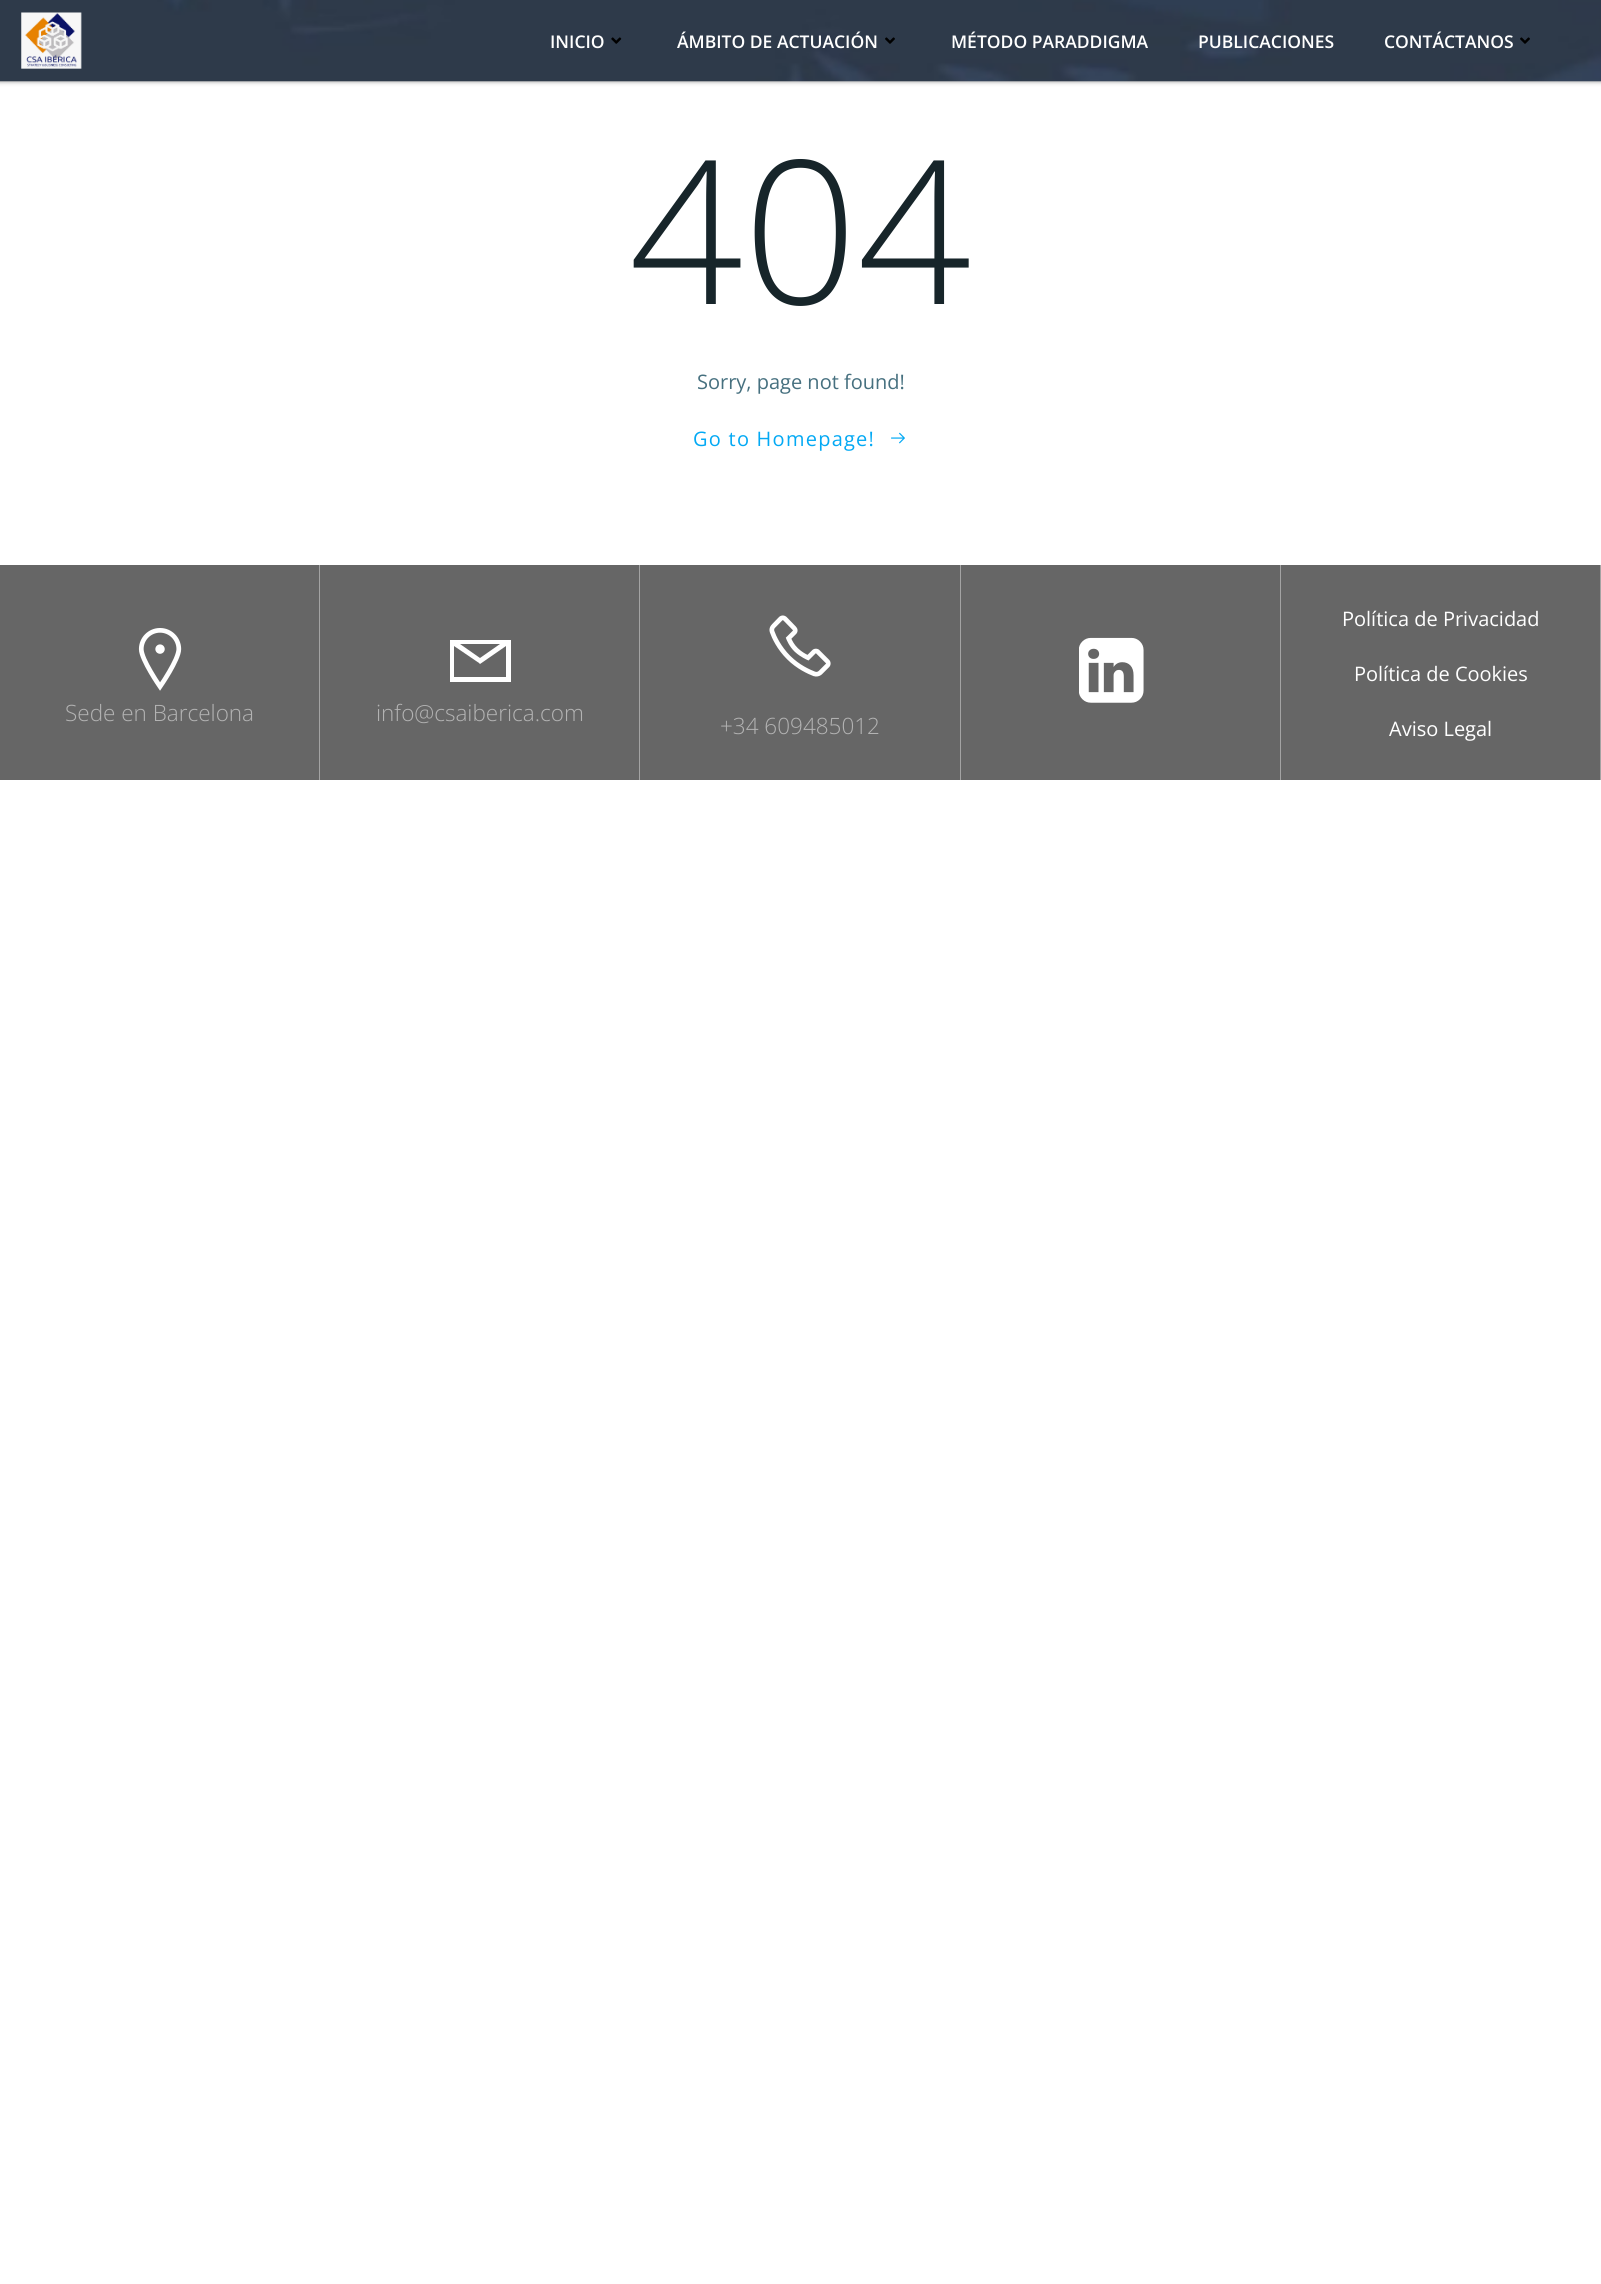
#include <cairo/cairo.h>
#include <math.h>
#include <stddef.h>


static void draw_spaced(cairo_t *cr, double x, double y, const char *s, double letter, double word) {
  cairo_move_to(cr, x, y);
  while (*s) {
    char ch[5] = {0};
    int n = 0;
    do ch[n++] = *s++; while ((*s & 0xC0) == 0x80);
    cairo_show_text(cr, ch);
    cairo_rel_move_to(cr, letter + word * (*ch == ' '), 0);
  }
}

static void rounded_rect(cairo_t *cr, double x, double y, double w, double h, double r) {
  cairo_new_sub_path(cr);
  cairo_arc(cr, x + w - r, y + h - r, r, 0, M_PI / 2);
  cairo_arc(cr, x + r, y + h - r, r, M_PI / 2, M_PI);
  cairo_arc(cr, x + r, y + r, r, M_PI, 1.5 * M_PI);
  cairo_arc(cr, x + w - r, y + r, r, 1.5 * M_PI, 2 * M_PI);
  cairo_close_path(cr);
}

static void draw_shadow(cairo_t *cr, double x, double y, double w, double h, double r, double blur, double alpha) {
  cairo_push_group_with_content(cr, CAIRO_CONTENT_ALPHA);
  cairo_set_operator(cr, CAIRO_OPERATOR_SOURCE);
  for (int i = 15; i >= -15 && fmin(w, h) + blur * i / 3 > 0; i -= 2) {
    double e = blur * i / 6;
    cairo_set_source_rgba(cr, 0, 0, 0, alpha * erfc((i - 1) / 8.5) / 2);
    rounded_rect(cr, x - e, y - e, w + 2 * e, h + 2 * e, fmax(0, fmin(r + e + blur * .6, fmin(w, h) / 2 + e)));
    cairo_fill(cr);
  }
  cairo_pattern_t *soft = cairo_pop_group(cr);
  cairo_mask(cr, soft);
  cairo_pattern_destroy(soft);
}

static void draw_image(cairo_t *cr, const char *path, double x, double y, double w, double h) {
  cairo_surface_t *image = cairo_image_surface_create_from_png(path);
  cairo_save(cr);
  cairo_set_source_surface(cr, image, x, y);
  cairo_rectangle(cr, x, y, w, h);
  cairo_fill(cr);
  cairo_restore(cr);
  cairo_surface_destroy(image);
}

static void draw(cairo_t *cr) {
  cairo_set_source_rgb(cr, 1, 1, 1);
  cairo_paint(cr);
  cairo_set_source_rgb(cr, 0, 0, 0);
  draw_shadow(cr, -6, 0, 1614, 81, 0, 2.5, 0.5);
  draw_image(cr, "images/1.png", 0, 0, 1601, 82);
  draw_image(cr, "images/2.png", 21, 12, 61, 57);
  draw_image(cr, "images/3.png", 611, 37, 11, 7);
  draw_image(cr, "images/4.png", 885, 37, 10, 7);
  draw_image(cr, "images/4.png", 1520, 37, 10, 7);
  draw_image(cr, "images/5.png", 891, 432, 14, 12);
  cairo_set_source_rgb(cr, 102 / 255.0, 102 / 255.0, 102 / 255.0);
  cairo_rectangle(cr, 0, 565, 319, 215);
  cairo_fill(cr);
  cairo_set_source_rgb(cr, 163 / 255.0, 163 / 255.0, 163 / 255.0);
  cairo_rectangle(cr, 319, 565, 1, 215);
  cairo_fill(cr);
  draw_image(cr, "images/6.png", 138, 628, 44, 63);
  cairo_set_source_rgb(cr, 102 / 255.0, 102 / 255.0, 102 / 255.0);
  cairo_rectangle(cr, 320, 565, 319, 215);
  cairo_fill(cr);
  cairo_set_source_rgb(cr, 163 / 255.0, 163 / 255.0, 163 / 255.0);
  cairo_rectangle(cr, 639, 565, 1, 215);
  cairo_fill(cr);
  cairo_set_source_rgb(cr, 1, 1, 1);
  cairo_new_path(cr);
  cairo_move_to(cr, 450, 640);
  cairo_line_to(cr, 511, 640);
  cairo_line_to(cr, 511, 682);
  cairo_line_to(cr, 450, 682);
  cairo_close_path(cr);
  cairo_move_to(cr, 460, 644);
  cairo_line_to(cr, 480, 658);
  cairo_line_to(cr, 500, 644);
  cairo_close_path(cr);
  cairo_move_to(cr, 454, 646);
  cairo_line_to(cr, 454, 677);
  cairo_line_to(cr, 506, 677);
  cairo_line_to(cr, 506, 646);
  cairo_line_to(cr, 480, 664);
  cairo_line_to(cr, 479, 663);
  cairo_close_path(cr);
  cairo_fill(cr);
  cairo_set_source_rgb(cr, 102 / 255.0, 102 / 255.0, 102 / 255.0);
  cairo_rectangle(cr, 961, 565, 319, 215);
  cairo_fill(cr);
  cairo_set_source_rgb(cr, 163 / 255.0, 163 / 255.0, 163 / 255.0);
  cairo_rectangle(cr, 1280, 565, 1, 215);
  cairo_fill(cr);
  draw_image(cr, "images/7.png", 1079, 637, 65, 66);
  cairo_set_source_rgb(cr, 102 / 255.0, 102 / 255.0, 102 / 255.0);
  cairo_rectangle(cr, 1281, 565, 319, 215);
  cairo_fill(cr);
  cairo_set_source_rgb(cr, 163 / 255.0, 163 / 255.0, 163 / 255.0);
  cairo_rectangle(cr, 1600, 565, 1, 215);
  cairo_fill(cr);
  cairo_set_source_rgb(cr, 102 / 255.0, 102 / 255.0, 102 / 255.0);
  cairo_rectangle(cr, 640, 565, 320, 215);
  cairo_fill(cr);
  cairo_set_source_rgb(cr, 163 / 255.0, 163 / 255.0, 163 / 255.0);
  cairo_rectangle(cr, 960, 565, 1, 215);
  cairo_fill(cr);
  draw_image(cr, "images/8.png", 769, 615, 62, 62);
  cairo_select_font_face(cr, "Open Sans SemiBold", CAIRO_FONT_SLANT_NORMAL, CAIRO_FONT_WEIGHT_NORMAL);
  cairo_set_font_size(cr, 17.5);
  cairo_set_source_rgb(cr, 1, 1, 1);
  cairo_move_to(cr, 550, 48);
  cairo_show_text(cr, "INICIO");
  cairo_move_to(cr, 677, 48);
  cairo_show_text(cr, "ÁMBITO DE ACTUACIÓN");
  cairo_move_to(cr, 951, 48);
  cairo_show_text(cr, "MÉTODO PARADDIGMA");
  cairo_move_to(cr, 1198, 48);
  cairo_show_text(cr, "PUBLICACIONES");
  cairo_move_to(cr, 1384, 48);
  cairo_show_text(cr, "CONTÁCTANOS");
  cairo_select_font_face(cr, "Open Sans Light", CAIRO_FONT_SLANT_NORMAL, CAIRO_FONT_WEIGHT_NORMAL);
  cairo_set_font_size(cr, 200);
  cairo_set_source_rgb(cr, 23 / 255.0, 37 / 255.0, 42 / 255.0);
  cairo_move_to(cr, 629, 304);
  cairo_show_text(cr, "404");
  cairo_select_font_face(cr, "Open Sans", CAIRO_FONT_SLANT_NORMAL, CAIRO_FONT_WEIGHT_NORMAL);
  cairo_set_font_size(cr, 20);
  cairo_set_source_rgb(cr, 70 / 255.0, 112 / 255.0, 127 / 255.0);
  cairo_move_to(cr, 697, 389);
  cairo_show_text(cr, "Sorry, page not found!");
  cairo_set_source_rgb(cr, 3 / 255.0, 169 / 255.0, 244 / 255.0);
  draw_spaced(cr, 693, 446, "Go to Homepage!", 1.25, 0);
  cairo_select_font_face(cr, "Open Sans Light", CAIRO_FONT_SLANT_NORMAL, CAIRO_FONT_WEIGHT_NORMAL);
  cairo_set_font_size(cr, 22.5);
  cairo_set_source_rgb(cr, 179 / 255.0, 179 / 255.0, 179 / 255.0);
  cairo_move_to(cr, 65, 721);
  cairo_show_text(cr, "Sede en Barcelona");
  cairo_move_to(cr, 376, 721);
  cairo_show_text(cr, "info@csaiberica.com");
  cairo_select_font_face(cr, "Open Sans", CAIRO_FONT_SLANT_NORMAL, CAIRO_FONT_WEIGHT_NORMAL);
  cairo_set_font_size(cr, 20);
  cairo_set_source_rgb(cr, 1, 1, 1);
  cairo_move_to(cr, 1342, 626);
  cairo_show_text(cr, "Política de Privacidad");
  cairo_move_to(cr, 1354, 681);
  cairo_show_text(cr, "Política de Cookies");
  cairo_move_to(cr, 1389, 736);
  cairo_show_text(cr, "Aviso Legal");
  cairo_select_font_face(cr, "Open Sans Light", CAIRO_FONT_SLANT_NORMAL, CAIRO_FONT_WEIGHT_NORMAL);
  cairo_set_font_size(cr, 22.5);
  cairo_set_source_rgb(cr, 179 / 255.0, 179 / 255.0, 179 / 255.0);
  cairo_move_to(cr, 720, 734);
  cairo_show_text(cr, "+34 609485012");
}

int main(void) {
  cairo_surface_t *surface = cairo_image_surface_create(CAIRO_FORMAT_RGB24, 1601, 2284);
  cairo_t *cr = cairo_create(surface);
  cairo_font_options_t *options = cairo_font_options_create();
  cairo_font_options_set_hint_metrics(options, CAIRO_HINT_METRICS_OFF);
  cairo_font_options_set_hint_style(options, CAIRO_HINT_STYLE_NONE);
  cairo_set_font_options(cr, options);
  cairo_set_miter_limit(cr, 4);
  draw(cr);
  cairo_surface_write_to_png(surface, "out.png");
  cairo_font_options_destroy(options);
  cairo_destroy(cr);
  cairo_surface_destroy(surface);
  return 0;
}
